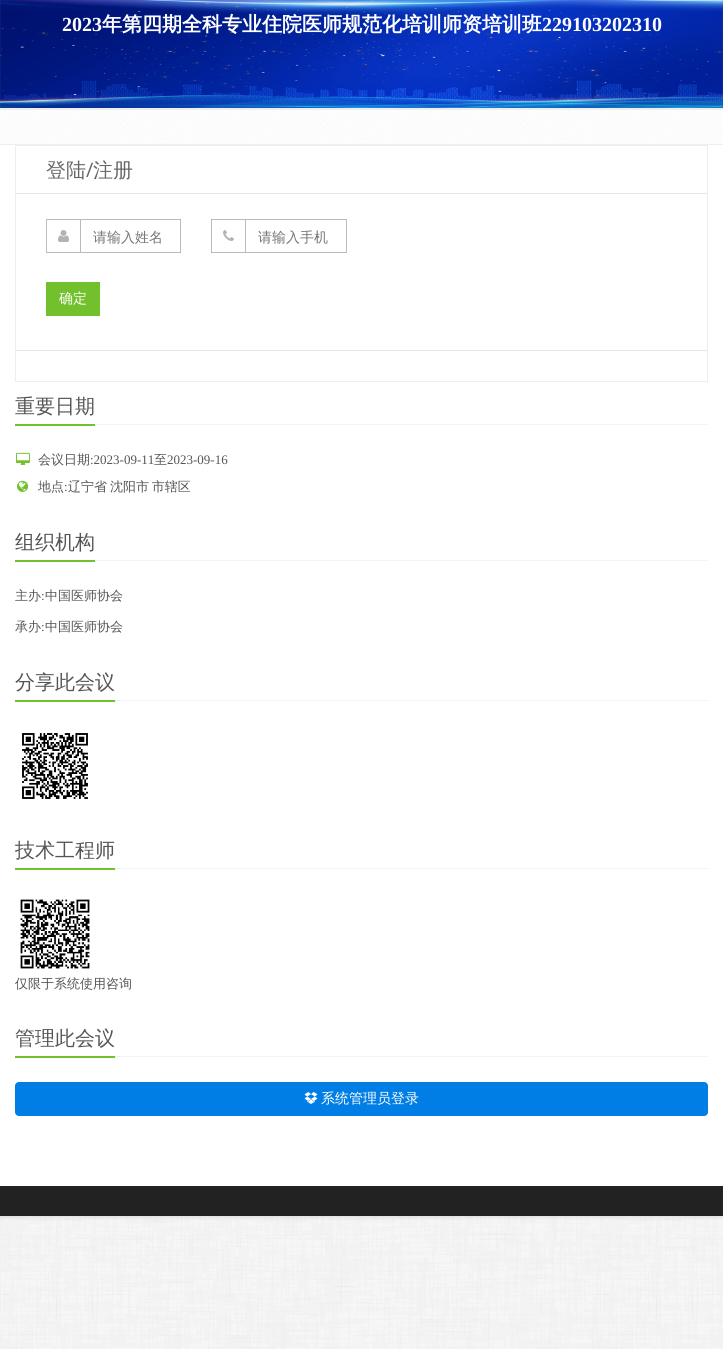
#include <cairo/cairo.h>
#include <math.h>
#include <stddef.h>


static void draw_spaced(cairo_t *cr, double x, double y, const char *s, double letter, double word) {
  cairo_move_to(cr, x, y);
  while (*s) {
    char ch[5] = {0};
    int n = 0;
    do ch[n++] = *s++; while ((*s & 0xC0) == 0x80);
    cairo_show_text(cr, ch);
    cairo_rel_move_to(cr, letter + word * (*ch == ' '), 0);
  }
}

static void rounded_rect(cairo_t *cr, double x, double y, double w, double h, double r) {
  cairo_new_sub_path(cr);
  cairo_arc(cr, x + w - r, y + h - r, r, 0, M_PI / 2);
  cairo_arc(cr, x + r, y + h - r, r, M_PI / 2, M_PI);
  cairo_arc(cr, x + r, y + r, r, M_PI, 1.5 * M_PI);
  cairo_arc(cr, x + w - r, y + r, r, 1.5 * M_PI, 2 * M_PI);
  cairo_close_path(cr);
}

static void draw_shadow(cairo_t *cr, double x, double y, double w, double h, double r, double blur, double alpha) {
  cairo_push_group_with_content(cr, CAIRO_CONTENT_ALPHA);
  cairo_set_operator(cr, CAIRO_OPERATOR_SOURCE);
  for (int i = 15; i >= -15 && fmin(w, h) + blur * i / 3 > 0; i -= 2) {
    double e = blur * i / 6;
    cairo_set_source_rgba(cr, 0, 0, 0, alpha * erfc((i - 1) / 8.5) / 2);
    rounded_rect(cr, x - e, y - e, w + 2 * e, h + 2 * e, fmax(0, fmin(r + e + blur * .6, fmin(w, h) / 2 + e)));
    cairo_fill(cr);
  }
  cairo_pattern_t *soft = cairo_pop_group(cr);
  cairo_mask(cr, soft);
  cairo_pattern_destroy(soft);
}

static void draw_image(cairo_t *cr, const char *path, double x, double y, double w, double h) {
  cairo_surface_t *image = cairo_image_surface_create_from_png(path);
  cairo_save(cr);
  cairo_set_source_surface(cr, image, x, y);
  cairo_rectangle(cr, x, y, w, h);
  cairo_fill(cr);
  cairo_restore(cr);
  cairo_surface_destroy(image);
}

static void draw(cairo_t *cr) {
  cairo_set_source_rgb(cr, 1, 1, 1);
  cairo_paint(cr);
  draw_image(cr, "images/1.png", 0, 1216, 723, 133);
  cairo_set_source_rgb(cr, 204 / 255.0, 204 / 255.0, 204 / 255.0);
  draw_shadow(cr, 0, 0, 723, 1216, 0, 2.5, 1);
  cairo_set_source_rgb(cr, 238 / 255.0, 238 / 255.0, 238 / 255.0);
  cairo_rectangle(cr, 0, 108, 723, 2);
  cairo_fill(cr);
  draw_image(cr, "images/2.png", 0, 0, 723, 108);
  cairo_set_source_rgb(cr, 1, 1, 1);
  cairo_rectangle(cr, 0, 145, 723, 1041);
  cairo_fill(cr);
  draw_image(cr, "images/3.png", 0, 110, 723, 34);
  cairo_set_source_rgb(cr, 238 / 255.0, 238 / 255.0, 238 / 255.0);
  cairo_rectangle(cr, 0, 144, 723, 1);
  cairo_fill(cr);
  cairo_rectangle(cr, 15.5, 145.5, 692, 236);
  cairo_set_line_width(cr, 1);
  cairo_stroke(cr);
  cairo_set_source_rgb(cr, 230 / 255.0, 230 / 255.0, 230 / 255.0);
  cairo_rectangle(cr, 16, 193, 691, 1);
  cairo_fill(cr);
  cairo_rectangle(cr, 46.5, 219.5, 134, 33);
  cairo_set_source_rgb(cr, 187 / 255.0, 187 / 255.0, 187 / 255.0);
  cairo_stroke(cr);
  cairo_rectangle(cr, 80, 220, 1, 32);
  cairo_fill(cr);
  draw_image(cr, "images/4.png", 58, 230, 11, 12);
  cairo_rectangle(cr, 211.5, 219.5, 135, 33);
  cairo_stroke(cr);
  cairo_rectangle(cr, 245, 220, 1, 32);
  cairo_fill(cr);
  draw_image(cr, "images/5.png", 223, 230, 11, 11);
  cairo_set_source_rgb(cr, 114 / 255.0, 192 / 255.0, 44 / 255.0);
  cairo_rectangle(cr, 46, 282, 54, 34);
  cairo_fill(cr);
  cairo_set_source_rgb(cr, 230 / 255.0, 230 / 255.0, 230 / 255.0);
  cairo_rectangle(cr, 16, 350, 691, 1);
  cairo_fill(cr);
  cairo_new_path(cr);
  cairo_move_to(cr, 15, 424.5);
  cairo_line_to(cr, 708, 424.5);
  cairo_set_source_rgb(cr, 228 / 255.0, 233 / 255.0, 240 / 255.0);
  cairo_set_dash(cr, (double[]){1, 1}, 2, 0);
  cairo_stroke(cr);
  cairo_set_source_rgb(cr, 114 / 255.0, 192 / 255.0, 44 / 255.0);
  cairo_rectangle(cr, 15, 424, 80, 2);
  cairo_fill(cr);
  draw_image(cr, "images/6.png", 16, 452, 14, 13);
  draw_image(cr, "images/7.png", 17, 480, 12, 12);
  cairo_new_path(cr);
  cairo_move_to(cr, 15, 560.5);
  cairo_line_to(cr, 708, 560.5);
  cairo_set_source_rgb(cr, 228 / 255.0, 233 / 255.0, 240 / 255.0);
  cairo_stroke(cr);
  cairo_set_source_rgb(cr, 114 / 255.0, 192 / 255.0, 44 / 255.0);
  cairo_rectangle(cr, 15, 560, 80, 2);
  cairo_fill(cr);
  cairo_new_path(cr);
  cairo_move_to(cr, 15, 700.5);
  cairo_line_to(cr, 708, 700.5);
  cairo_set_source_rgb(cr, 228 / 255.0, 233 / 255.0, 240 / 255.0);
  cairo_stroke(cr);
  cairo_set_source_rgb(cr, 114 / 255.0, 192 / 255.0, 44 / 255.0);
  cairo_rectangle(cr, 15, 700, 100, 2);
  cairo_fill(cr);
  draw_image(cr, "images/8.png", 22, 733, 66, 66);
  cairo_new_path(cr);
  cairo_move_to(cr, 15, 868.5);
  cairo_line_to(cr, 708, 868.5);
  cairo_set_source_rgb(cr, 228 / 255.0, 233 / 255.0, 240 / 255.0);
  cairo_stroke(cr);
  cairo_set_source_rgb(cr, 114 / 255.0, 192 / 255.0, 44 / 255.0);
  cairo_rectangle(cr, 15, 868, 100, 2);
  cairo_fill(cr);
  draw_image(cr, "images/9.png", 20, 899, 70, 70);
  cairo_new_path(cr);
  cairo_move_to(cr, 15, 1056.5);
  cairo_line_to(cr, 708, 1056.5);
  cairo_set_source_rgb(cr, 228 / 255.0, 233 / 255.0, 240 / 255.0);
  cairo_stroke(cr);
  cairo_set_source_rgb(cr, 114 / 255.0, 192 / 255.0, 44 / 255.0);
  cairo_rectangle(cr, 15, 1056, 100, 2);
  cairo_fill(cr);
  cairo_set_source_rgb(cr, 0, 126 / 255.0, 229 / 255.0);
  rounded_rect(cr, 15.5, 1082.5, 692, 33, 3.5);
  cairo_fill_preserve(cr);
  cairo_set_dash(cr, NULL, 0, 0);
  cairo_stroke(cr);
  draw_image(cr, "images/10.png", 304, 1092, 14, 12);
  cairo_set_source_rgb(cr, 34 / 255.0, 34 / 255.0, 34 / 255.0);
  cairo_rectangle(cr, 0, 1186, 723, 30);
  cairo_fill(cr);
  cairo_select_font_face(cr, "Liberation Serif", CAIRO_FONT_SLANT_NORMAL, CAIRO_FONT_WEIGHT_BOLD);
  cairo_set_font_size(cr, 20);
  cairo_set_source_rgb(cr, 1, 1, 1);
  cairo_move_to(cr, 62, 31);
  cairo_show_text(cr, "2023");
  cairo_select_font_face(cr, "WenQuanYi Zen Hei", CAIRO_FONT_SLANT_NORMAL, CAIRO_FONT_WEIGHT_BOLD);
  cairo_move_to(cr, 102, 31);
  cairo_show_text(cr, "年第四期全科专业住院医师规范化培训师资培训班");
  cairo_select_font_face(cr, "Liberation Serif", CAIRO_FONT_SLANT_NORMAL, CAIRO_FONT_WEIGHT_BOLD);
  cairo_move_to(cr, 542, 31);
  cairo_show_text(cr, "229103202310");
  cairo_select_font_face(cr, "WenQuanYi Zen Hei Medium", CAIRO_FONT_SLANT_NORMAL, CAIRO_FONT_WEIGHT_NORMAL);
  cairo_set_source_rgb(cr, 102 / 255.0, 102 / 255.0, 102 / 255.0);
  cairo_move_to(cr, 46, 177);
  cairo_show_text(cr, "登陆");
  cairo_select_font_face(cr, "Open Sans", CAIRO_FONT_SLANT_NORMAL, CAIRO_FONT_WEIGHT_NORMAL);
  cairo_move_to(cr, 86, 177);
  cairo_show_text(cr, "/");
  cairo_select_font_face(cr, "WenQuanYi Zen Hei Medium", CAIRO_FONT_SLANT_NORMAL, CAIRO_FONT_WEIGHT_NORMAL);
  cairo_move_to(cr, 93, 177);
  cairo_show_text(cr, "注册");
  cairo_set_font_size(cr, 14);
  cairo_set_source_rgb(cr, 117 / 255.0, 117 / 255.0, 117 / 255.0);
  cairo_move_to(cr, 93, 242);
  cairo_show_text(cr, "请输入姓名");
  cairo_move_to(cr, 258, 242);
  cairo_show_text(cr, "请输入手机");
  cairo_set_source_rgb(cr, 1, 1, 1);
  cairo_move_to(cr, 59, 303);
  cairo_show_text(cr, "确定");
  cairo_set_font_size(cr, 20);
  cairo_set_source_rgb(cr, 85 / 255.0, 85 / 255.0, 85 / 255.0);
  cairo_move_to(cr, 15, 413);
  cairo_show_text(cr, "重要日期");
  cairo_set_font_size(cr, 13);
  cairo_move_to(cr, 38, 464);
  cairo_show_text(cr, "会议日期");
  cairo_select_font_face(cr, "Liberation Serif", CAIRO_FONT_SLANT_NORMAL, CAIRO_FONT_WEIGHT_NORMAL);
  cairo_move_to(cr, 90, 464);
  cairo_show_text(cr, ":2023-09-11");
  cairo_select_font_face(cr, "WenQuanYi Zen Hei Medium", CAIRO_FONT_SLANT_NORMAL, CAIRO_FONT_WEIGHT_NORMAL);
  cairo_move_to(cr, 154, 464);
  cairo_show_text(cr, "至");
  cairo_select_font_face(cr, "Liberation Serif", CAIRO_FONT_SLANT_NORMAL, CAIRO_FONT_WEIGHT_NORMAL);
  cairo_move_to(cr, 167, 464);
  cairo_show_text(cr, "2023-09-16");
  cairo_select_font_face(cr, "WenQuanYi Zen Hei Medium", CAIRO_FONT_SLANT_NORMAL, CAIRO_FONT_WEIGHT_NORMAL);
  cairo_move_to(cr, 38, 491);
  cairo_show_text(cr, "地点");
  cairo_select_font_face(cr, "Liberation Serif", CAIRO_FONT_SLANT_NORMAL, CAIRO_FONT_WEIGHT_NORMAL);
  cairo_move_to(cr, 64, 491);
  cairo_show_text(cr, ":");
  cairo_select_font_face(cr, "WenQuanYi Zen Hei Medium", CAIRO_FONT_SLANT_NORMAL, CAIRO_FONT_WEIGHT_NORMAL);
  draw_spaced(cr, 68, 491, "辽宁省 沈阳市 市辖区", 0, -1);
  cairo_set_font_size(cr, 20);
  cairo_move_to(cr, 15, 549);
  cairo_show_text(cr, "组织机构");
  cairo_set_font_size(cr, 13);
  cairo_move_to(cr, 15, 600);
  cairo_show_text(cr, "主办 中国医师协会");
  cairo_select_font_face(cr, "Liberation Serif", CAIRO_FONT_SLANT_NORMAL, CAIRO_FONT_WEIGHT_NORMAL);
  cairo_move_to(cr, 41, 600);
  cairo_show_text(cr, ":");
  cairo_select_font_face(cr, "WenQuanYi Zen Hei Medium", CAIRO_FONT_SLANT_NORMAL, CAIRO_FONT_WEIGHT_NORMAL);
  cairo_move_to(cr, 15, 631);
  cairo_show_text(cr, "承办 中国医师协会");
  cairo_select_font_face(cr, "Liberation Serif", CAIRO_FONT_SLANT_NORMAL, CAIRO_FONT_WEIGHT_NORMAL);
  cairo_move_to(cr, 41, 631);
  cairo_show_text(cr, ":");
  cairo_select_font_face(cr, "WenQuanYi Zen Hei Medium", CAIRO_FONT_SLANT_NORMAL, CAIRO_FONT_WEIGHT_NORMAL);
  cairo_set_font_size(cr, 20);
  cairo_move_to(cr, 15, 689);
  cairo_show_text(cr, "分享此会议");
  cairo_move_to(cr, 15, 857);
  cairo_show_text(cr, "技术工程师");
  cairo_set_font_size(cr, 13);
  cairo_move_to(cr, 15, 988);
  cairo_show_text(cr, "仅限于系统使用咨询");
  cairo_set_font_size(cr, 20);
  cairo_move_to(cr, 15, 1045);
  cairo_show_text(cr, "管理此会议");
  cairo_set_font_size(cr, 14);
  cairo_set_source_rgb(cr, 1, 1, 1);
  cairo_move_to(cr, 321, 1103);
  cairo_show_text(cr, "系统管理员登录");
}

int main(void) {
  cairo_surface_t *surface = cairo_image_surface_create(CAIRO_FORMAT_RGB24, 723, 1349);
  cairo_t *cr = cairo_create(surface);
  cairo_font_options_t *options = cairo_font_options_create();
  cairo_font_options_set_hint_metrics(options, CAIRO_HINT_METRICS_OFF);
  cairo_font_options_set_hint_style(options, CAIRO_HINT_STYLE_NONE);
  cairo_set_font_options(cr, options);
  cairo_set_miter_limit(cr, 4);
  draw(cr);
  cairo_surface_write_to_png(surface, "out.png");
  cairo_font_options_destroy(options);
  cairo_destroy(cr);
  cairo_surface_destroy(surface);
  return 0;
}
